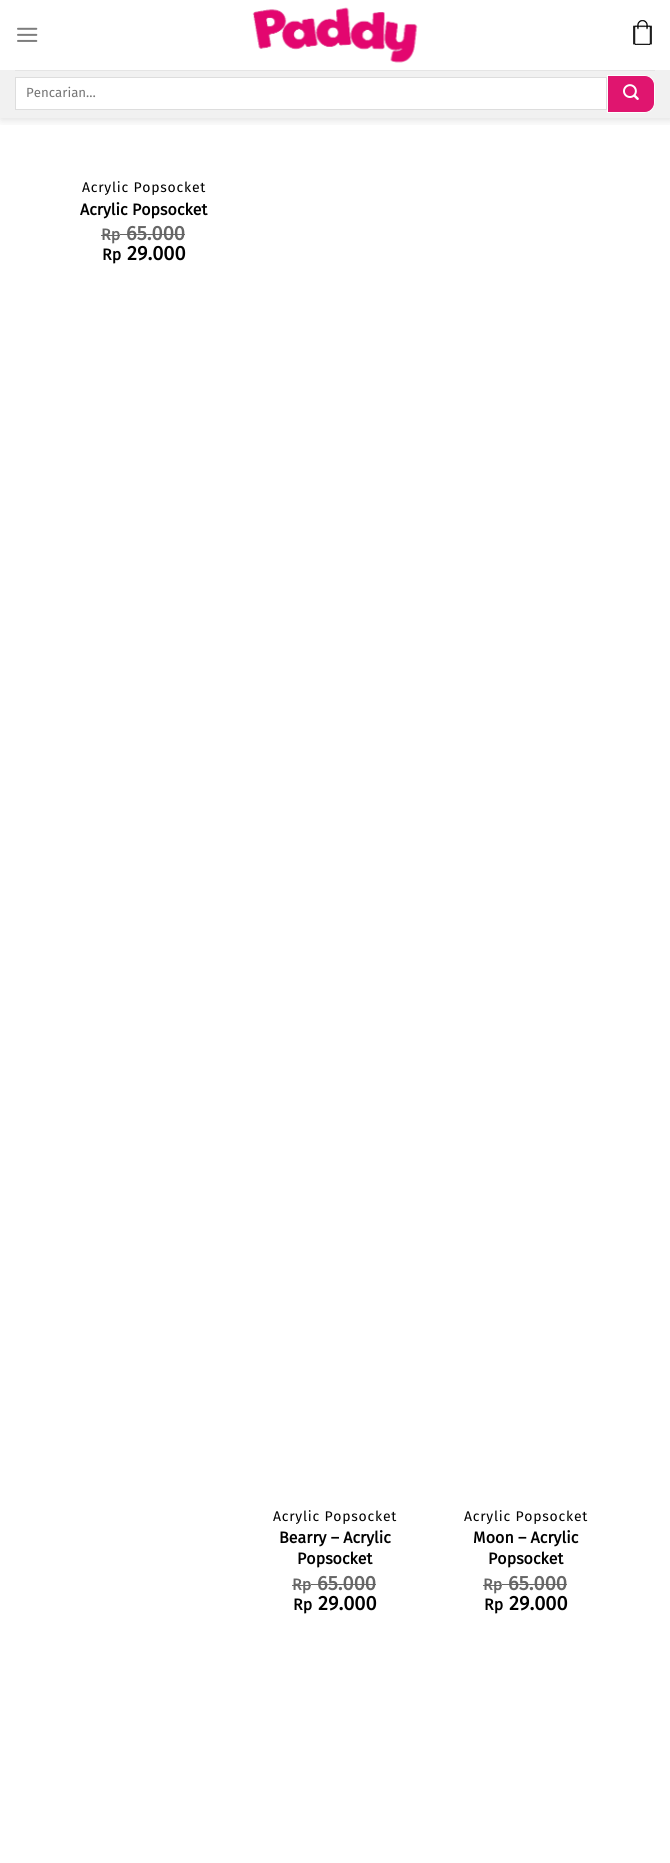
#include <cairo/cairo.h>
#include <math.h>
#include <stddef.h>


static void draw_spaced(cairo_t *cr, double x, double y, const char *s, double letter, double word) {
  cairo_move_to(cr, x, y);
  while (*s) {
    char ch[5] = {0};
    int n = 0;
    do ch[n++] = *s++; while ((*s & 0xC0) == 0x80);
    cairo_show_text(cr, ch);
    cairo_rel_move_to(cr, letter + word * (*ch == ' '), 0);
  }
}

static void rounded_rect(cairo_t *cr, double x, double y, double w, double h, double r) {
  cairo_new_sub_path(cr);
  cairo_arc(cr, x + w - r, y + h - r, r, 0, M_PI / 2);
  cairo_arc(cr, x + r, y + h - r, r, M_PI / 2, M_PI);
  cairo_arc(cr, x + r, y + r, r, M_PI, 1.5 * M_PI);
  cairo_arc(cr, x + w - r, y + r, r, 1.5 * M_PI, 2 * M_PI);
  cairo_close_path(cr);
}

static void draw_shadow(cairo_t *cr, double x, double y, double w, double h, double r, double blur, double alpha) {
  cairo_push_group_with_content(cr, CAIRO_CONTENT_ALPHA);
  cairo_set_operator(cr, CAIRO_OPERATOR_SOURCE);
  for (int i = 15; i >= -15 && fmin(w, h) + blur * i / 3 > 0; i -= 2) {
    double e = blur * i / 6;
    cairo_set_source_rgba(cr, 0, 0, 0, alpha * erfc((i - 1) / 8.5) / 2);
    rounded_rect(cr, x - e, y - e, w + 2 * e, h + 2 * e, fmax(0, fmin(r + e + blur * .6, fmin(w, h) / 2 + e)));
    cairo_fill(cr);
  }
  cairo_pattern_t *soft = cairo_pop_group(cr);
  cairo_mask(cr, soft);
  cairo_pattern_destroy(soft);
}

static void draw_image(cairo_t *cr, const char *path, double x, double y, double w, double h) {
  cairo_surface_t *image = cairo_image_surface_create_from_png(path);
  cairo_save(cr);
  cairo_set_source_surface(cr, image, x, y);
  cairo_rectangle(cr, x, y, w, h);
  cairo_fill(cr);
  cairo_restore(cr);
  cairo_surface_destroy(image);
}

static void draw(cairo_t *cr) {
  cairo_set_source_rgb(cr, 1, 1, 1);
  cairo_paint(cr);
  draw_image(cr, "images/5.png", 180, 41, 25, 21);
  draw_image(cr, "images/5.png", 371, 41, 25, 21);
  draw_image(cr, "images/5.png", 562, 41, 25, 21);
  cairo_save(cr);
  cairo_rectangle(cr, 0, 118, 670, 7);
  cairo_clip(cr);
  cairo_set_source_rgb(cr, 0, 0, 0);
  draw_shadow(cr, 1, 1, 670, 118, 0, 5, 0.15);
  cairo_restore(cr);
  draw_image(cr, "images/1.png", 17, 27, 21, 15);
  draw_image(cr, "images/2.png", 252, 7, 166, 56);
  draw_image(cr, "images/3.png", 633, 20, 19, 25);
  cairo_set_source_rgb(cr, 241 / 255.0, 241 / 255.0, 241 / 255.0);
  cairo_rectangle(cr, 0, 70, 670, 48);
  cairo_fill(cr);
  cairo_set_source_rgb(cr, 229 / 255.0, 229 / 255.0, 229 / 255.0);
  cairo_rectangle(cr, 15, 70, 640, 1);
  cairo_fill(cr);
  cairo_set_source_rgb(cr, 1, 1, 1);
  cairo_rectangle(cr, 15.5, 77.5, 591, 32);
  cairo_fill_preserve(cr);
  cairo_set_source_rgb(cr, 221 / 255.0, 221 / 255.0, 221 / 255.0);
  cairo_set_line_width(cr, 1);
  cairo_stroke(cr);
  cairo_set_source_rgb(cr, 224 / 255.0, 21 / 255.0, 111 / 255.0);
  cairo_new_path(cr);
  cairo_move_to(cr, 607.5, 75.5);
  cairo_line_to(cr, 645, 75.5);
  cairo_curve_to(cr, 650, 75.5, 654.5, 80, 654.5, 85);
  cairo_line_to(cr, 654.5, 103);
  cairo_curve_to(cr, 654.5, 108, 650, 112.5, 645, 112.5);
  cairo_line_to(cr, 607.5, 112.5);
  cairo_close_path(cr);
  cairo_fill_preserve(cr);
  cairo_set_source_rgb(cr, 1, 1, 1);
  cairo_stroke(cr);
  draw_image(cr, "images/4.png", 623, 84, 16, 16);
  cairo_set_source_rgb(cr, 102 / 255.0, 102 / 255.0, 102 / 255.0);
  cairo_rectangle(cr, 101, 235, 19, 1);
  cairo_fill(cr);
  cairo_rectangle(cr, 120, 234, 65, 1);
  cairo_fill(cr);
  cairo_rectangle(cr, 292, 1585, 19, 1);
  cairo_fill(cr);
  cairo_rectangle(cr, 311, 1584, 65, 1);
  cairo_fill(cr);
  cairo_rectangle(cr, 483, 1585, 19, 1);
  cairo_fill(cr);
  cairo_rectangle(cr, 502, 1584, 65, 1);
  cairo_fill(cr);
  cairo_select_font_face(cr, "Fira Sans", CAIRO_FONT_SLANT_NORMAL, CAIRO_FONT_WEIGHT_NORMAL);
  cairo_set_font_size(cr, 13.25);
  cairo_set_source_rgb(cr, 117 / 255.0, 117 / 255.0, 117 / 255.0);
  cairo_move_to(cr, 26, 97);
  cairo_show_text(cr, "Pencarian…");
  cairo_set_font_size(cr, 14);
  cairo_set_source_rgb(cr, 0, 0, 0);
  draw_spaced(cr, 82, 192, "Acrylic Popsocket", 0.75, 0);
  cairo_select_font_face(cr, "Fira Sans", CAIRO_FONT_SLANT_NORMAL, CAIRO_FONT_WEIGHT_BOLD);
  cairo_set_font_size(cr, 16);
  cairo_move_to(cr, 80, 215);
  cairo_show_text(cr, "Acrylic Popsocket");
  cairo_set_source_rgb(cr, 102 / 255.0, 102 / 255.0, 102 / 255.0);
  cairo_move_to(cr, 101, 240);
  cairo_show_text(cr, "Rp");
  cairo_set_font_size(cr, 20);
  cairo_move_to(cr, 126, 240);
  cairo_show_text(cr, "65.000");
  cairo_set_font_size(cr, 16);
  cairo_set_source_rgb(cr, 0, 0, 0);
  cairo_move_to(cr, 102, 260);
  cairo_show_text(cr, "Rp");
  cairo_set_font_size(cr, 20);
  cairo_move_to(cr, 127, 260);
  cairo_show_text(cr, "29.000");
  cairo_select_font_face(cr, "Fira Sans", CAIRO_FONT_SLANT_NORMAL, CAIRO_FONT_WEIGHT_NORMAL);
  cairo_set_font_size(cr, 14);
  draw_spaced(cr, 273, 1521, "Acrylic Popsocket", 0.75, 0);
  cairo_select_font_face(cr, "Fira Sans", CAIRO_FONT_SLANT_NORMAL, CAIRO_FONT_WEIGHT_BOLD);
  cairo_set_font_size(cr, 16);
  cairo_move_to(cr, 279, 1543);
  cairo_show_text(cr, "Bearry – Acrylic");
  cairo_move_to(cr, 297, 1564);
  cairo_show_text(cr, "Popsocket");
  cairo_set_source_rgb(cr, 102 / 255.0, 102 / 255.0, 102 / 255.0);
  cairo_move_to(cr, 292, 1590);
  cairo_show_text(cr, "Rp");
  cairo_set_font_size(cr, 20);
  cairo_move_to(cr, 317, 1590);
  cairo_show_text(cr, "65.000");
  cairo_set_font_size(cr, 16);
  cairo_set_source_rgb(cr, 0, 0, 0);
  cairo_move_to(cr, 293, 1610);
  cairo_show_text(cr, "Rp");
  cairo_set_font_size(cr, 20);
  cairo_move_to(cr, 318, 1610);
  cairo_show_text(cr, "29.000");
  cairo_select_font_face(cr, "Fira Sans", CAIRO_FONT_SLANT_NORMAL, CAIRO_FONT_WEIGHT_NORMAL);
  cairo_set_font_size(cr, 14);
  draw_spaced(cr, 464, 1521, "Acrylic Popsocket", 0.75, 0);
  cairo_select_font_face(cr, "Fira Sans", CAIRO_FONT_SLANT_NORMAL, CAIRO_FONT_WEIGHT_BOLD);
  cairo_set_font_size(cr, 16);
  cairo_move_to(cr, 473, 1543);
  cairo_show_text(cr, "Moon – Acrylic");
  cairo_move_to(cr, 488, 1564);
  cairo_show_text(cr, "Popsocket");
  cairo_set_source_rgb(cr, 102 / 255.0, 102 / 255.0, 102 / 255.0);
  cairo_move_to(cr, 483, 1590);
  cairo_show_text(cr, "Rp");
  cairo_set_font_size(cr, 20);
  cairo_move_to(cr, 508, 1590);
  cairo_show_text(cr, "65.000");
  cairo_set_font_size(cr, 16);
  cairo_set_source_rgb(cr, 0, 0, 0);
  cairo_move_to(cr, 484, 1610);
  cairo_show_text(cr, "Rp");
  cairo_set_font_size(cr, 20);
  cairo_move_to(cr, 509, 1610);
  cairo_show_text(cr, "29.000");
}

int main(void) {
  cairo_surface_t *surface = cairo_image_surface_create(CAIRO_FORMAT_RGB24, 670, 1863);
  cairo_t *cr = cairo_create(surface);
  cairo_font_options_t *options = cairo_font_options_create();
  cairo_font_options_set_hint_metrics(options, CAIRO_HINT_METRICS_OFF);
  cairo_font_options_set_hint_style(options, CAIRO_HINT_STYLE_NONE);
  cairo_set_font_options(cr, options);
  cairo_set_miter_limit(cr, 4);
  draw(cr);
  cairo_surface_write_to_png(surface, "out.png");
  cairo_font_options_destroy(options);
  cairo_destroy(cr);
  cairo_surface_destroy(surface);
  return 0;
}
